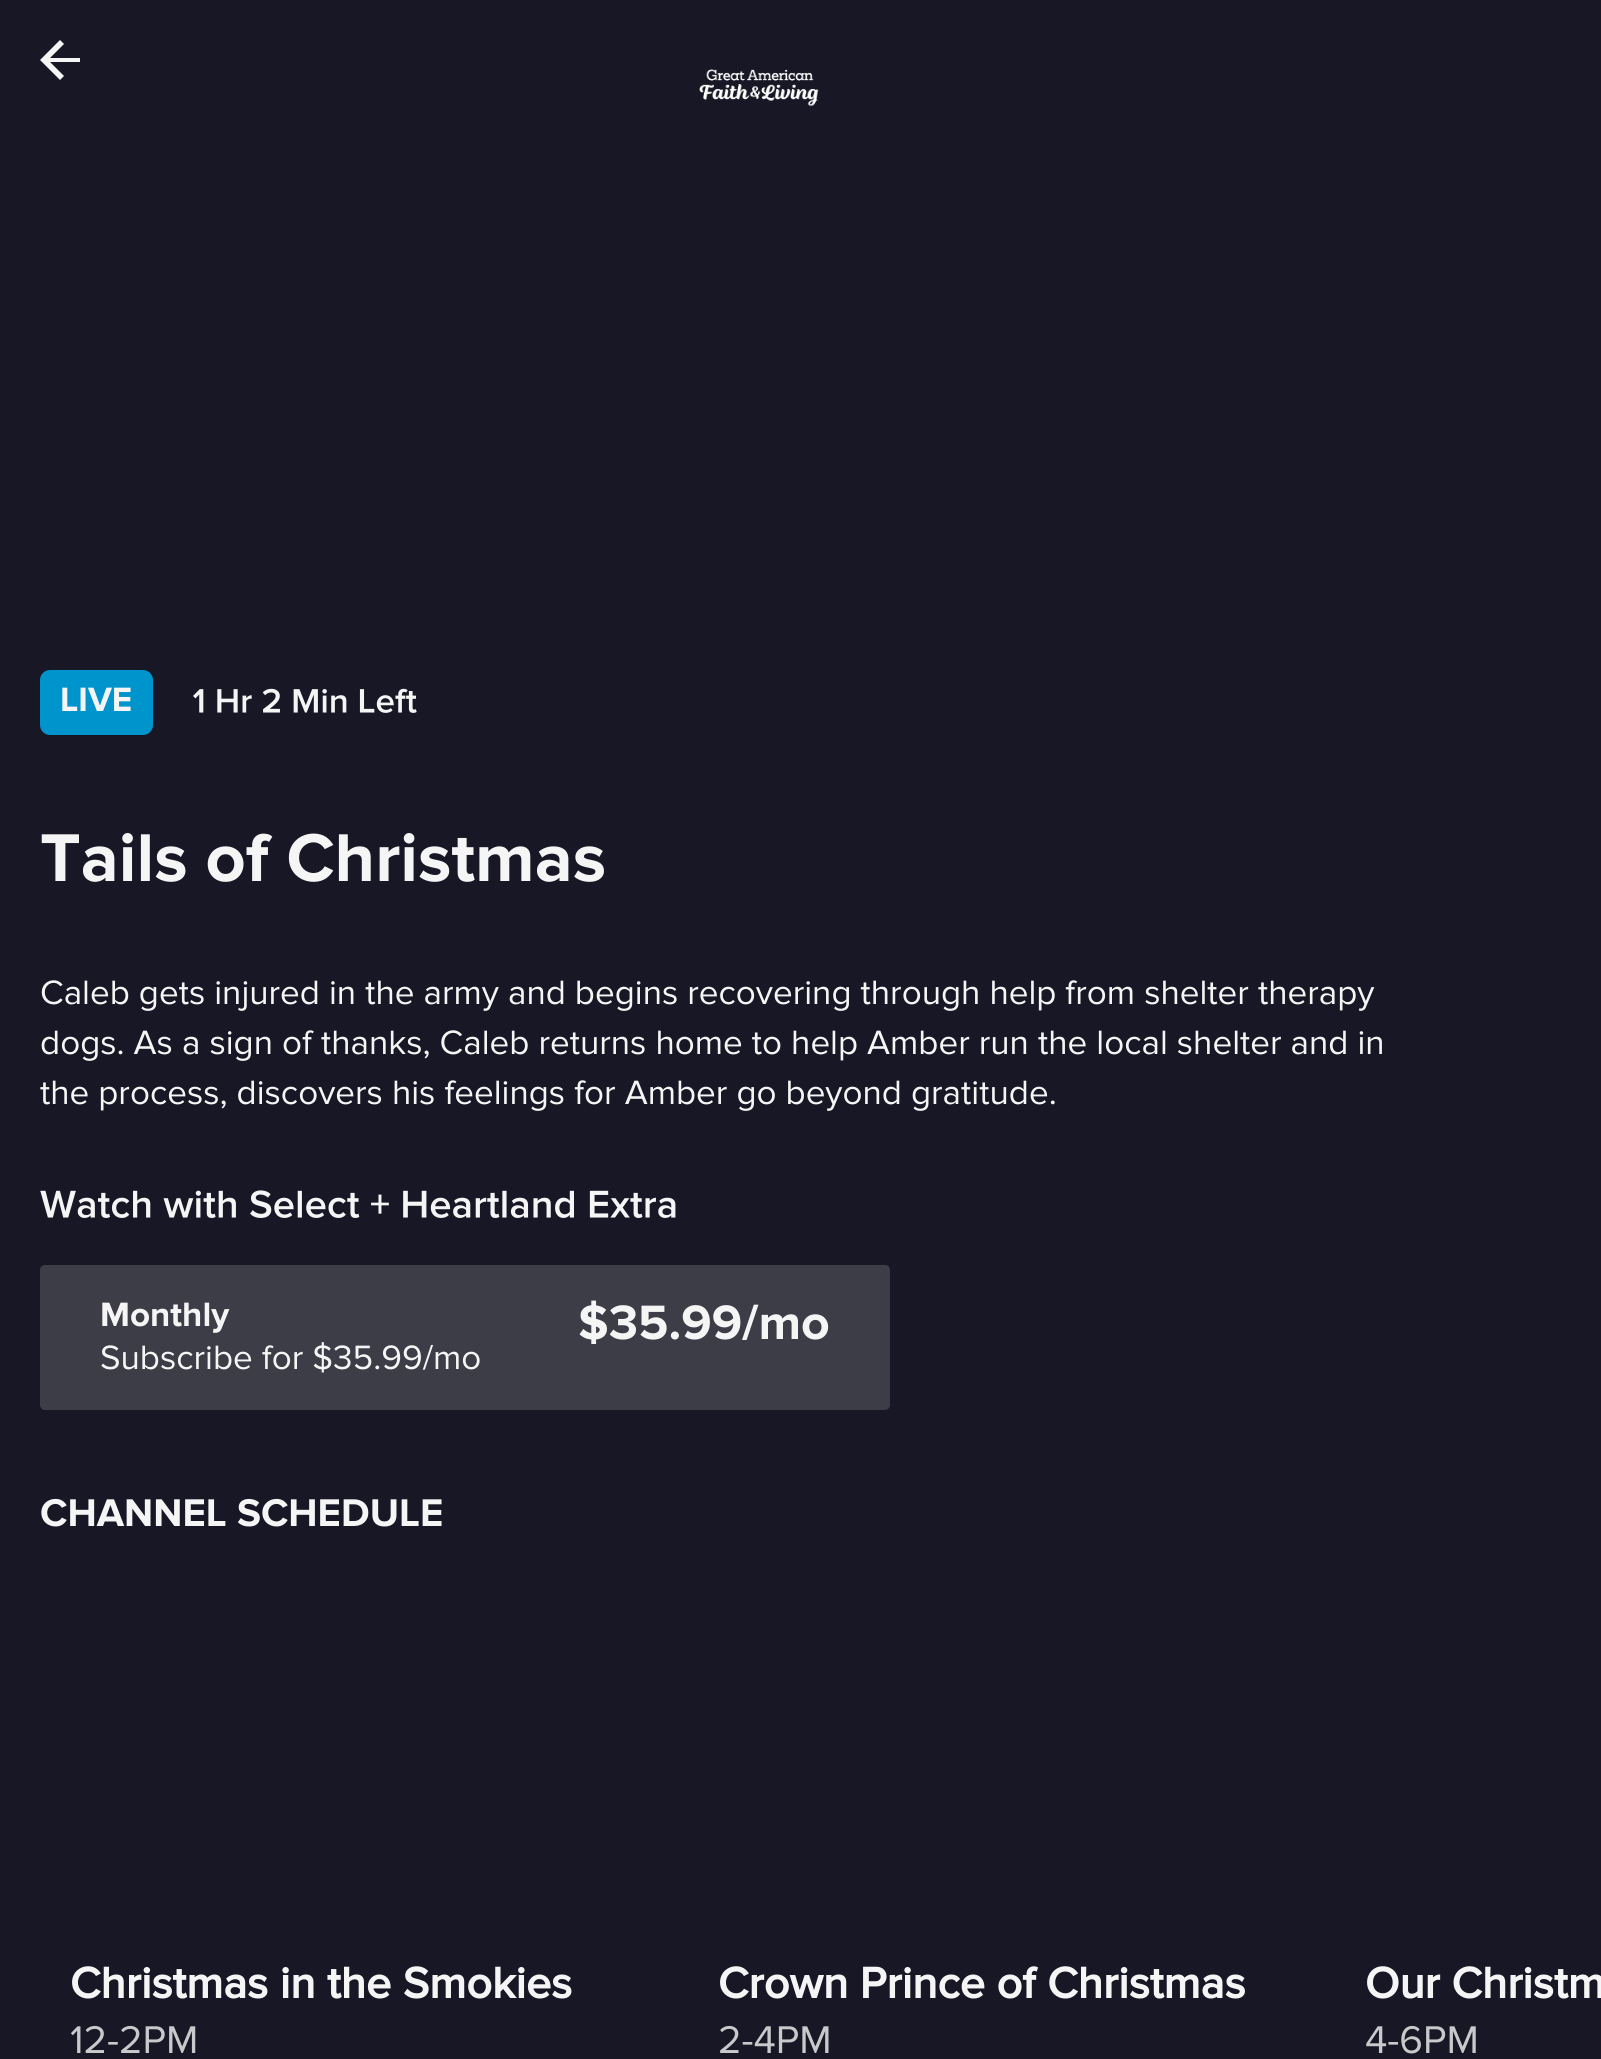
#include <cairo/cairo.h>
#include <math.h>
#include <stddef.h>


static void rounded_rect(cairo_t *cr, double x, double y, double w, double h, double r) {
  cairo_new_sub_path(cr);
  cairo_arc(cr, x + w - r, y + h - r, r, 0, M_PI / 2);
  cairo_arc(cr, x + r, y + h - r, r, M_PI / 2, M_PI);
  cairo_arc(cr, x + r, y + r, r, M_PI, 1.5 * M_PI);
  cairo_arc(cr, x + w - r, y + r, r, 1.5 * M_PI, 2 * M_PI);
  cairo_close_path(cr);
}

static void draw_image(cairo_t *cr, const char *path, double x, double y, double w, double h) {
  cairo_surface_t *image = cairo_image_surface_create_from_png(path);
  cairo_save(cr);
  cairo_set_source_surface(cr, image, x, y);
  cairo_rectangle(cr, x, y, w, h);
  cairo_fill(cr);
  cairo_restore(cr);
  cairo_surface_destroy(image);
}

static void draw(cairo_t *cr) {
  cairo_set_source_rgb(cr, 23 / 255.0, 23 / 255.0, 37 / 255.0);
  cairo_paint(cr);
  cairo_set_source_rgb(cr, 245 / 255.0, 245 / 255.0, 246 / 255.0);
  cairo_set_fill_rule(cr, CAIRO_FILL_RULE_EVEN_ODD);
  cairo_new_path(cr);
  cairo_move_to(cr, 80, 58);
  cairo_line_to(cr, 50, 58);
  cairo_line_to(cr, 64, 44);
  cairo_line_to(cr, 60, 40);
  cairo_line_to(cr, 40, 60);
  cairo_line_to(cr, 60, 80);
  cairo_line_to(cr, 64, 76);
  cairo_line_to(cr, 50, 62);
  cairo_line_to(cr, 80, 62);
  cairo_close_path(cr);
  cairo_fill(cr);
  draw_image(cr, "images/1.png", 699, 69, 120, 38);
  cairo_set_source_rgb(cr, 0, 148 / 255.0, 204 / 255.0);
  rounded_rect(cr, 40, 670, 113, 65, 10);
  cairo_fill(cr);
  draw_image(cr, "images/2.png", 193, 688, 224, 25);
  draw_image(cr, "images/3.png", 40, 1190, 636, 28);
  cairo_set_source_rgb(cr, 61 / 255.0, 61 / 255.0, 72 / 255.0);
  rounded_rect(cr, 40, 1265, 850, 145, 5);
  cairo_fill(cr);
  cairo_select_font_face(cr, "Proxima Nova", CAIRO_FONT_SLANT_NORMAL, CAIRO_FONT_WEIGHT_BOLD);
  cairo_set_font_size(cr, 35);
  cairo_set_source_rgb(cr, 245 / 255.0, 245 / 255.0, 246 / 255.0);
  cairo_move_to(cr, 60, 711);
  cairo_show_text(cr, "LIVE");
  cairo_set_font_size(cr, 70);
  cairo_move_to(cr, 40, 881);
  cairo_show_text(cr, "Tails of Christmas");
  cairo_select_font_face(cr, "Proxima Nova", CAIRO_FONT_SLANT_NORMAL, CAIRO_FONT_WEIGHT_NORMAL);
  cairo_set_font_size(cr, 35);
  cairo_move_to(cr, 40, 1004);
  cairo_show_text(cr, "Caleb gets injured in the army and begins recovering through help from shelter therapy");
  cairo_move_to(cr, 40, 1054);
  cairo_show_text(cr, "dogs. As a sign of thanks, Caleb returns home to help Amber run the local shelter and in");
  cairo_move_to(cr, 40, 1104);
  cairo_show_text(cr, "the process, discovers his feelings for Amber go beyond gratitude.");
  cairo_select_font_face(cr, "Proxima Nova", CAIRO_FONT_SLANT_NORMAL, CAIRO_FONT_WEIGHT_BOLD);
  cairo_move_to(cr, 100, 1326);
  cairo_show_text(cr, "Monthly");
  cairo_select_font_face(cr, "Proxima Nova", CAIRO_FONT_SLANT_NORMAL, CAIRO_FONT_WEIGHT_NORMAL);
  cairo_move_to(cr, 100, 1369);
  cairo_show_text(cr, "Subscribe for $35.99/mo");
  cairo_select_font_face(cr, "Proxima Nova", CAIRO_FONT_SLANT_NORMAL, CAIRO_FONT_WEIGHT_BOLD);
  cairo_set_font_size(cr, 50);
  cairo_move_to(cr, 578, 1339);
  cairo_show_text(cr, "$35.99/mo");
  cairo_set_font_size(cr, 40);
  cairo_move_to(cr, 40, 1526);
  cairo_show_text(cr, "CHANNEL SCHEDULE");
  cairo_select_font_face(cr, "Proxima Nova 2", CAIRO_FONT_SLANT_NORMAL, CAIRO_FONT_WEIGHT_BOLD);
  cairo_set_font_size(cr, 45);
  cairo_move_to(cr, 70, 1998);
  cairo_show_text(cr, "Christmas in the Smokies");
  cairo_select_font_face(cr, "Proxima Nova", CAIRO_FONT_SLANT_NORMAL, CAIRO_FONT_WEIGHT_NORMAL);
  cairo_set_font_size(cr, 40);
  cairo_set_source_rgb(cr, 201 / 255.0, 201 / 255.0, 204 / 255.0);
  cairo_move_to(cr, 70, 2053);
  cairo_show_text(cr, "12-2PM");
  cairo_select_font_face(cr, "Proxima Nova 2", CAIRO_FONT_SLANT_NORMAL, CAIRO_FONT_WEIGHT_BOLD);
  cairo_set_font_size(cr, 45);
  cairo_set_source_rgb(cr, 245 / 255.0, 245 / 255.0, 246 / 255.0);
  cairo_move_to(cr, 718, 1998);
  cairo_show_text(cr, "Crown Prince of Christmas");
  cairo_select_font_face(cr, "Proxima Nova", CAIRO_FONT_SLANT_NORMAL, CAIRO_FONT_WEIGHT_NORMAL);
  cairo_set_font_size(cr, 40);
  cairo_set_source_rgb(cr, 201 / 255.0, 201 / 255.0, 204 / 255.0);
  cairo_move_to(cr, 718, 2053);
  cairo_show_text(cr, "2-4PM");
  cairo_select_font_face(cr, "Proxima Nova 2", CAIRO_FONT_SLANT_NORMAL, CAIRO_FONT_WEIGHT_BOLD);
  cairo_set_font_size(cr, 45);
  cairo_set_source_rgb(cr, 245 / 255.0, 245 / 255.0, 246 / 255.0);
  cairo_move_to(cr, 1365, 1998);
  cairo_show_text(cr, "Our Christm");
  cairo_select_font_face(cr, "Proxima Nova", CAIRO_FONT_SLANT_NORMAL, CAIRO_FONT_WEIGHT_NORMAL);
  cairo_set_font_size(cr, 40);
  cairo_set_source_rgb(cr, 201 / 255.0, 201 / 255.0, 204 / 255.0);
  cairo_move_to(cr, 1365, 2053);
  cairo_show_text(cr, "4-6PM");
}

int main(void) {
  cairo_surface_t *surface = cairo_image_surface_create(CAIRO_FORMAT_RGB24, 1601, 2059);
  cairo_t *cr = cairo_create(surface);
  cairo_font_options_t *options = cairo_font_options_create();
  cairo_font_options_set_hint_metrics(options, CAIRO_HINT_METRICS_OFF);
  cairo_font_options_set_hint_style(options, CAIRO_HINT_STYLE_NONE);
  cairo_set_font_options(cr, options);
  cairo_set_miter_limit(cr, 4);
  draw(cr);
  cairo_surface_write_to_png(surface, "out.png");
  cairo_font_options_destroy(options);
  cairo_destroy(cr);
  cairo_surface_destroy(surface);
  return 0;
}
